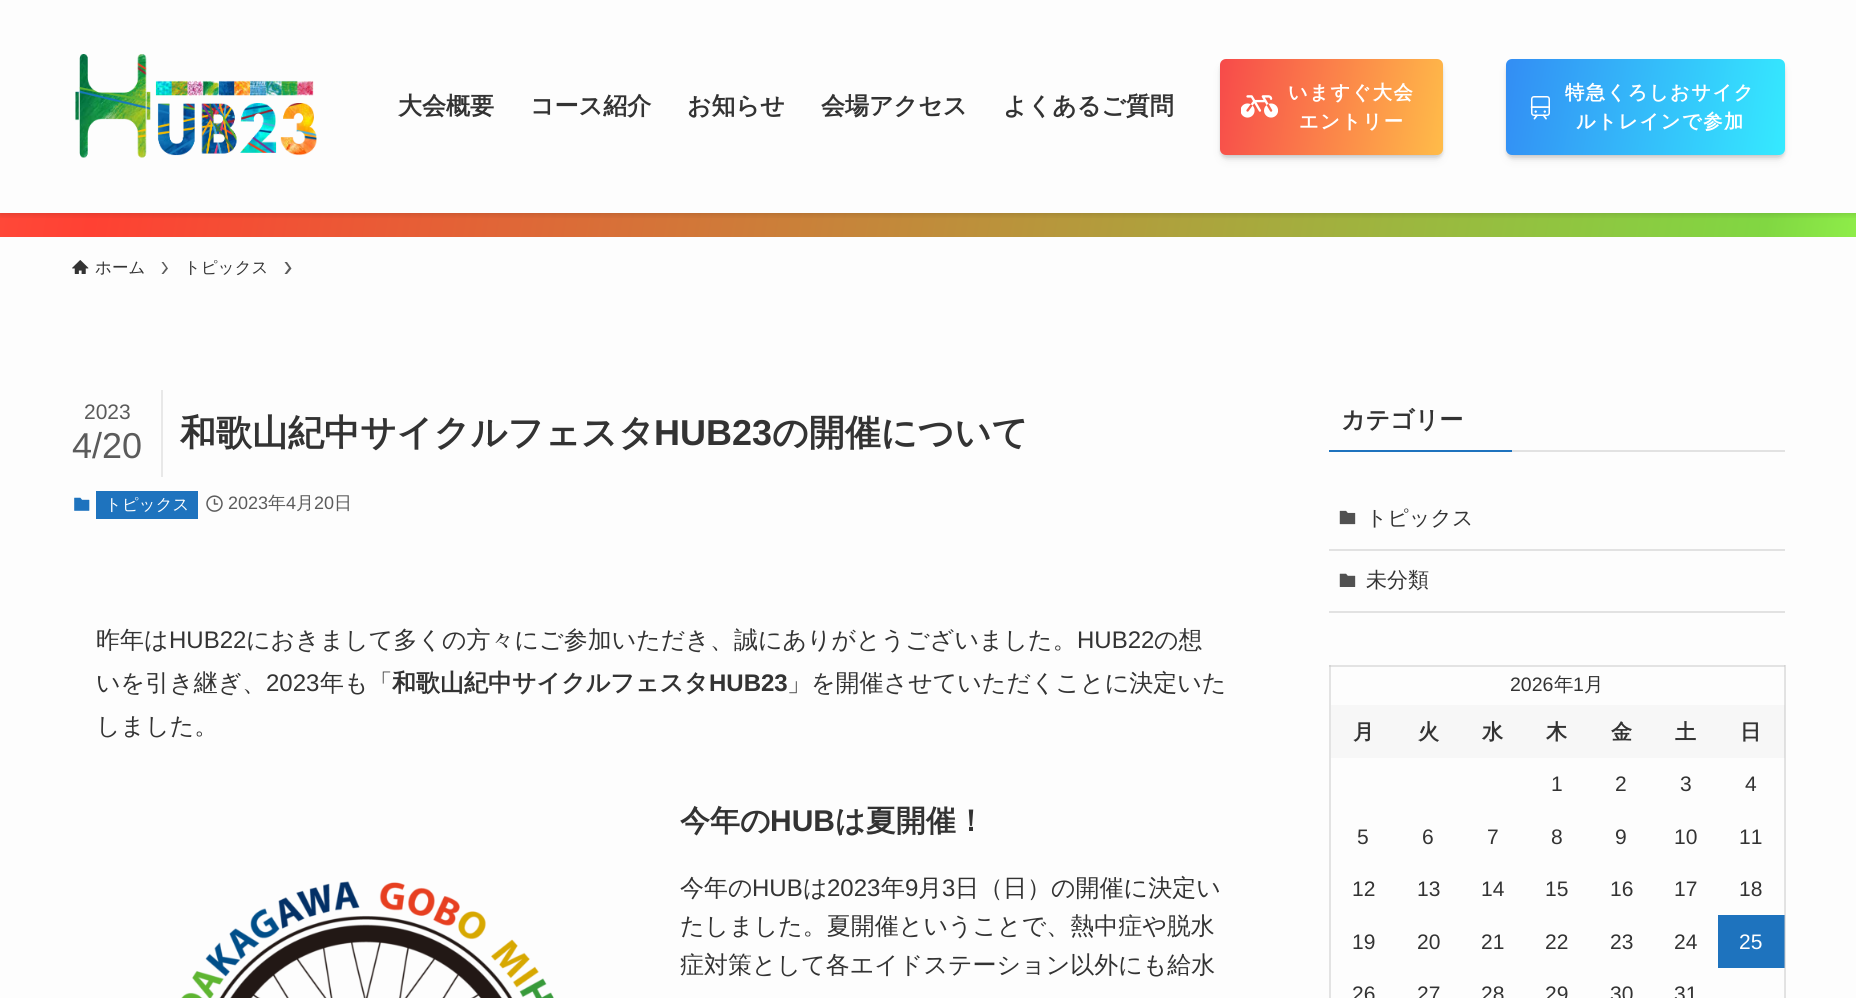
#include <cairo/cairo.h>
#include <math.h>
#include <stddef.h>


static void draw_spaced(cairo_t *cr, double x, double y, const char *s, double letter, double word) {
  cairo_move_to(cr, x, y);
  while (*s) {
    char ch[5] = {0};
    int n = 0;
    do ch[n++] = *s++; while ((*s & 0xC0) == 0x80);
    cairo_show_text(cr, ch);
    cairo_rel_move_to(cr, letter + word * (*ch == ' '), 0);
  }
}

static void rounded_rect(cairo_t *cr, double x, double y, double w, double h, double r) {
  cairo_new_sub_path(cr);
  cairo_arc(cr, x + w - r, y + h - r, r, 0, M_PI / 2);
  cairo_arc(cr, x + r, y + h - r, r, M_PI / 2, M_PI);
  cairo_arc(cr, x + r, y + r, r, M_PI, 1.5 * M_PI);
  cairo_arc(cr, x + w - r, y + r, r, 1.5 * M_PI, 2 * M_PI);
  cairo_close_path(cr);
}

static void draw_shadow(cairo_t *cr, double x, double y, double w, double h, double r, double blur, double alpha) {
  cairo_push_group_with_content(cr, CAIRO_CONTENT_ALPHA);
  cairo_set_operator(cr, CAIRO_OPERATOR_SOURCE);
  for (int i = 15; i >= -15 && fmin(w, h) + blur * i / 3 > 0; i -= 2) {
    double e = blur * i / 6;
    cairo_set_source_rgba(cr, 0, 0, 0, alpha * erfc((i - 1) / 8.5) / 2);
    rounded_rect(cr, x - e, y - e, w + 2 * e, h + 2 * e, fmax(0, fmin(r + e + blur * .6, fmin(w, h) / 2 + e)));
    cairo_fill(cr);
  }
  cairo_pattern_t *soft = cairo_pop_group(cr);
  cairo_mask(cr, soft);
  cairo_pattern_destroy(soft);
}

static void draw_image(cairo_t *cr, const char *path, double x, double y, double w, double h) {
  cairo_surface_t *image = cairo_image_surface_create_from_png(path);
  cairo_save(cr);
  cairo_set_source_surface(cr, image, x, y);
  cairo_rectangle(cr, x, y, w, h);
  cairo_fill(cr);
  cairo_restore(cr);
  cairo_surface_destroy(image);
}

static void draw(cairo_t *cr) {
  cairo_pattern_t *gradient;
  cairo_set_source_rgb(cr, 253 / 255.0, 253 / 255.0, 253 / 255.0);
  cairo_paint(cr);
  cairo_set_source_rgb(cr, 226 / 255.0, 226 / 255.0, 226 / 255.0);
  cairo_rectangle(cr, 1785, 665, 1, 333);
  cairo_fill(cr);
  gradient = cairo_pattern_create_linear(26, 66, 1831, 384);
  cairo_pattern_add_color_stop_rgba(gradient, 0, 1, 72 / 255.0, 56 / 255.0, 1);
  cairo_pattern_add_color_stop_rgba(gradient, 0.05, 1, 65 / 255.0, 51 / 255.0, 1);
  cairo_pattern_add_color_stop_rgba(gradient, 0.95, 129 / 255.0, 215 / 255.0, 66 / 255.0, 1);
  cairo_pattern_add_color_stop_rgba(gradient, 1, 142 / 255.0, 237 / 255.0, 73 / 255.0, 1);
  cairo_set_source(cr, gradient);
  cairo_pattern_destroy(gradient);
  cairo_rectangle(cr, 0, 213, 1856, 24);
  cairo_fill(cr);
  cairo_save(cr);
  cairo_rectangle(cr, 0, 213, 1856, 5);
  cairo_clip(cr);
  cairo_set_source_rgb(cr, 0, 0, 0);
  draw_shadow(cr, 0, 2, 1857, 213, 0, 3, 0.12);
  cairo_restore(cr);
  draw_image(cr, "images/1.png", 75, 54, 242, 104);
  cairo_set_source_rgb(cr, 0, 0, 0);
  draw_shadow(cr, 1226, 71, 211, 84, 0, 6, 0.2);
  draw_shadow(cr, 1220, 62, 223, 96, 6, 1.5, 0.1);
  gradient = cairo_pattern_create_linear(1215, 86, 1448, 127);
  cairo_pattern_add_color_stop_rgba(gradient, 0, 247 / 255.0, 74 / 255.0, 74 / 255.0, 1);
  cairo_pattern_add_color_stop_rgba(gradient, 1, 1, 188 / 255.0, 73 / 255.0, 1);
  cairo_set_source(cr, gradient);
  cairo_pattern_destroy(gradient);
  rounded_rect(cr, 1220, 59, 223, 96, 6);
  cairo_fill(cr);
  draw_image(cr, "images/2.png", 1241, 95, 37, 23);
  cairo_set_source_rgb(cr, 0, 0, 0);
  draw_shadow(cr, 1512, 71, 267, 84, 0, 6, 0.2);
  draw_shadow(cr, 1506, 62, 279, 96, 6, 1.5, 0.1);
  gradient = cairo_pattern_create_linear(1502, 81, 1789, 132);
  cairo_pattern_add_color_stop_rgba(gradient, 0, 51 / 255.0, 141 / 255.0, 244 / 255.0, 1);
  cairo_pattern_add_color_stop_rgba(gradient, 1, 53 / 255.0, 234 / 255.0, 1, 1);
  cairo_set_source(cr, gradient);
  cairo_pattern_destroy(gradient);
  rounded_rect(cr, 1506, 59, 279, 96, 6);
  cairo_fill(cr);
  draw_image(cr, "images/3.png", 1530, 96, 20, 24);
  draw_image(cr, "images/4.png", 72, 260, 17, 14);
  cairo_set_source_rgb(cr, 91 / 255.0, 91 / 255.0, 91 / 255.0);
  cairo_new_path(cr);
  cairo_move_to(cr, 163.5, 262);
  cairo_line_to(cr, 161.5, 262);
  cairo_line_to(cr, 166, 268);
  cairo_line_to(cr, 161.5, 274);
  cairo_line_to(cr, 163.5, 274);
  cairo_line_to(cr, 168, 268.5);
  cairo_close_path(cr);
  cairo_fill(cr);
  cairo_new_path(cr);
  cairo_move_to(cr, 287, 262);
  cairo_line_to(cr, 284.5, 262);
  cairo_line_to(cr, 289, 268);
  cairo_line_to(cr, 284.5, 274);
  cairo_line_to(cr, 287, 274);
  cairo_line_to(cr, 291.5, 268.5);
  cairo_close_path(cr);
  cairo_fill(cr);
  cairo_set_source_rgb(cr, 232 / 255.0, 232 / 255.0, 232 / 255.0);
  cairo_rectangle(cr, 161, 390, 2, 87);
  cairo_fill(cr);
  draw_image(cr, "images/5.png", 74, 497, 16, 14);
  cairo_set_source_rgb(cr, 30 / 255.0, 115 / 255.0, 190 / 255.0);
  cairo_rectangle(cr, 96, 491, 102, 28);
  cairo_fill(cr);
  draw_image(cr, "images/6.png", 206, 495, 17, 17);
  draw_image(cr, "images/7.png", 181, 881, 373, 117);
  cairo_rectangle(cr, 1329, 450, 183, 2);
  cairo_fill(cr);
  cairo_set_source_rgb(cr, 226 / 255.0, 226 / 255.0, 226 / 255.0);
  cairo_rectangle(cr, 1512, 450, 273, 2);
  cairo_fill(cr);
  cairo_rectangle(cr, 1329, 549, 456, 2);
  cairo_fill(cr);
  draw_image(cr, "images/8.png", 1339, 510, 17, 15);
  cairo_rectangle(cr, 1329, 611, 456, 2);
  cairo_fill(cr);
  draw_image(cr, "images/9.png", 1339, 573, 17, 14);
  cairo_set_source_rgb(cr, 227 / 255.0, 227 / 255.0, 227 / 255.0);
  cairo_rectangle(cr, 1329, 665, 2, 333);
  cairo_fill(cr);
  cairo_rectangle(cr, 1784, 665, 1, 333);
  cairo_fill(cr);
  cairo_rectangle(cr, 1329, 665, 456, 2);
  cairo_fill(cr);
  cairo_set_source_rgb(cr, 213 / 255.0, 213 / 255.0, 213 / 255.0);
  cairo_rectangle(cr, 1329, 665, 2, 2);
  cairo_fill(cr);
  cairo_rectangle(cr, 1784, 665, 1, 2);
  cairo_fill(cr);
  cairo_set_source_rgb(cr, 247 / 255.0, 247 / 255.0, 247 / 255.0);
  cairo_rectangle(cr, 1331, 705, 453, 53);
  cairo_fill(cr);
  cairo_set_source_rgb(cr, 223 / 255.0, 223 / 255.0, 223 / 255.0);
  cairo_rectangle(cr, 1784, 705, 1, 53);
  cairo_fill(cr);
  cairo_set_source_rgb(cr, 30 / 255.0, 115 / 255.0, 190 / 255.0);
  cairo_rectangle(cr, 1718, 915, 66, 53);
  cairo_fill(cr);
  cairo_set_source_rgb(cr, 115 / 255.0, 157 / 255.0, 195 / 255.0);
  cairo_rectangle(cr, 1784, 915, 1, 53);
  cairo_fill(cr);
  cairo_select_font_face(cr, "WenQuanYi Zen Hei", CAIRO_FONT_SLANT_NORMAL, CAIRO_FONT_WEIGHT_BOLD);
  cairo_set_font_size(cr, 24);
  cairo_set_source_rgb(cr, 51 / 255.0, 51 / 255.0, 51 / 255.0);
  cairo_move_to(cr, 398, 114);
  cairo_show_text(cr, "大会概要");
  cairo_move_to(cr, 530, 114);
  cairo_show_text(cr, "コース紹介");
  cairo_move_to(cr, 687, 114);
  cairo_show_text(cr, "お知らせ");
  cairo_move_to(cr, 821, 114);
  cairo_show_text(cr, "会場アクセス");
  cairo_move_to(cr, 1003, 114);
  cairo_show_text(cr, "よくあるご質問");
  cairo_set_font_size(cr, 19.25);
  cairo_set_source_rgb(cr, 1, 1, 1);
  draw_spaced(cr, 1288, 99, "いますぐ大会", 1.5, 0);
  draw_spaced(cr, 1299, 128, "エントリー", 1.5, 0);
  draw_spaced(cr, 1565, 99, "特急くろしおサイク", 1.5, 0);
  draw_spaced(cr, 1576, 128, "ルトレインで参加", 1.5, 0);
  cairo_select_font_face(cr, "WenQuanYi Zen Hei Medium", CAIRO_FONT_SLANT_NORMAL, CAIRO_FONT_WEIGHT_NORMAL);
  cairo_set_font_size(cr, 16.5);
  cairo_set_source_rgb(cr, 51 / 255.0, 51 / 255.0, 51 / 255.0);
  cairo_move_to(cr, 95, 273);
  cairo_show_text(cr, "ホーム");
  cairo_move_to(cr, 184, 273);
  cairo_show_text(cr, "トピックス");
  cairo_select_font_face(cr, "Liberation Sans", CAIRO_FONT_SLANT_NORMAL, CAIRO_FONT_WEIGHT_NORMAL);
  cairo_set_font_size(cr, 21);
  cairo_set_source_rgb(cr, 91 / 255.0, 91 / 255.0, 91 / 255.0);
  cairo_move_to(cr, 84, 419);
  cairo_show_text(cr, "2023");
  cairo_set_font_size(cr, 36);
  cairo_move_to(cr, 72, 458);
  cairo_show_text(cr, "4/20");
  cairo_select_font_face(cr, "WenQuanYi Zen Hei", CAIRO_FONT_SLANT_NORMAL, CAIRO_FONT_WEIGHT_BOLD);
  cairo_set_source_rgb(cr, 51 / 255.0, 51 / 255.0, 51 / 255.0);
  cairo_move_to(cr, 180, 445);
  cairo_show_text(cr, "和歌山紀中サイクルフェスタ");
  cairo_select_font_face(cr, "Liberation Sans", CAIRO_FONT_SLANT_NORMAL, CAIRO_FONT_WEIGHT_BOLD);
  cairo_move_to(cr, 654, 445);
  cairo_show_text(cr, "HUB23");
  cairo_select_font_face(cr, "WenQuanYi Zen Hei", CAIRO_FONT_SLANT_NORMAL, CAIRO_FONT_WEIGHT_BOLD);
  cairo_move_to(cr, 772, 445);
  cairo_show_text(cr, "の開催について");
  cairo_select_font_face(cr, "WenQuanYi Zen Hei Medium", CAIRO_FONT_SLANT_NORMAL, CAIRO_FONT_WEIGHT_NORMAL);
  cairo_set_font_size(cr, 16.5);
  cairo_set_source_rgb(cr, 1, 1, 1);
  cairo_move_to(cr, 105, 510);
  cairo_show_text(cr, "トピックス");
  cairo_select_font_face(cr, "Liberation Sans", CAIRO_FONT_SLANT_NORMAL, CAIRO_FONT_WEIGHT_NORMAL);
  cairo_set_font_size(cr, 18);
  cairo_set_source_rgb(cr, 91 / 255.0, 91 / 255.0, 91 / 255.0);
  cairo_move_to(cr, 228, 509);
  cairo_show_text(cr, "2023");
  cairo_select_font_face(cr, "WenQuanYi Zen Hei Medium", CAIRO_FONT_SLANT_NORMAL, CAIRO_FONT_WEIGHT_NORMAL);
  cairo_move_to(cr, 268, 509);
  cairo_show_text(cr, "年");
  cairo_select_font_face(cr, "Liberation Sans", CAIRO_FONT_SLANT_NORMAL, CAIRO_FONT_WEIGHT_NORMAL);
  cairo_move_to(cr, 286, 509);
  cairo_show_text(cr, "4");
  cairo_select_font_face(cr, "WenQuanYi Zen Hei Medium", CAIRO_FONT_SLANT_NORMAL, CAIRO_FONT_WEIGHT_NORMAL);
  cairo_move_to(cr, 296, 509);
  cairo_show_text(cr, "月");
  cairo_select_font_face(cr, "Liberation Sans", CAIRO_FONT_SLANT_NORMAL, CAIRO_FONT_WEIGHT_NORMAL);
  cairo_move_to(cr, 314, 509);
  cairo_show_text(cr, "20");
  cairo_select_font_face(cr, "WenQuanYi Zen Hei Medium", CAIRO_FONT_SLANT_NORMAL, CAIRO_FONT_WEIGHT_NORMAL);
  cairo_move_to(cr, 334, 509);
  cairo_show_text(cr, "日");
  cairo_set_font_size(cr, 24);
  cairo_set_source_rgb(cr, 51 / 255.0, 51 / 255.0, 51 / 255.0);
  cairo_move_to(cr, 96, 648);
  cairo_show_text(cr, "昨年は");
  cairo_select_font_face(cr, "Liberation Sans", CAIRO_FONT_SLANT_NORMAL, CAIRO_FONT_WEIGHT_NORMAL);
  cairo_move_to(cr, 169, 648);
  cairo_show_text(cr, "HUB22");
  cairo_select_font_face(cr, "WenQuanYi Zen Hei Medium", CAIRO_FONT_SLANT_NORMAL, CAIRO_FONT_WEIGHT_NORMAL);
  cairo_move_to(cr, 246, 648);
  cairo_show_text(cr, "におきまして多くの方々にご参加いただき、誠にありがとうございました。");
  cairo_select_font_face(cr, "Liberation Sans", CAIRO_FONT_SLANT_NORMAL, CAIRO_FONT_WEIGHT_NORMAL);
  cairo_move_to(cr, 1077, 648);
  cairo_show_text(cr, "HUB22");
  cairo_select_font_face(cr, "WenQuanYi Zen Hei Medium", CAIRO_FONT_SLANT_NORMAL, CAIRO_FONT_WEIGHT_NORMAL);
  cairo_move_to(cr, 1154, 648);
  cairo_show_text(cr, "の想");
  cairo_move_to(cr, 96, 691);
  cairo_show_text(cr, "いを引き継ぎ、");
  cairo_select_font_face(cr, "Liberation Sans", CAIRO_FONT_SLANT_NORMAL, CAIRO_FONT_WEIGHT_NORMAL);
  cairo_move_to(cr, 266, 691);
  cairo_show_text(cr, "2023");
  cairo_select_font_face(cr, "WenQuanYi Zen Hei Medium", CAIRO_FONT_SLANT_NORMAL, CAIRO_FONT_WEIGHT_NORMAL);
  cairo_move_to(cr, 320, 691);
  cairo_show_text(cr, "年も「");
  cairo_select_font_face(cr, "WenQuanYi Zen Hei", CAIRO_FONT_SLANT_NORMAL, CAIRO_FONT_WEIGHT_BOLD);
  cairo_move_to(cr, 392, 691);
  cairo_show_text(cr, "和歌山紀中サイクルフェスタ");
  cairo_select_font_face(cr, "Liberation Sans", CAIRO_FONT_SLANT_NORMAL, CAIRO_FONT_WEIGHT_BOLD);
  cairo_move_to(cr, 709, 691);
  cairo_show_text(cr, "HUB23");
  cairo_select_font_face(cr, "WenQuanYi Zen Hei Medium", CAIRO_FONT_SLANT_NORMAL, CAIRO_FONT_WEIGHT_NORMAL);
  cairo_move_to(cr, 787, 691);
  cairo_show_text(cr, "」を開催させていただくことに決定いた");
  cairo_move_to(cr, 96, 734);
  cairo_show_text(cr, "しました。");
  cairo_select_font_face(cr, "WenQuanYi Zen Hei", CAIRO_FONT_SLANT_NORMAL, CAIRO_FONT_WEIGHT_BOLD);
  cairo_set_font_size(cr, 30);
  cairo_move_to(cr, 680, 831);
  cairo_show_text(cr, "今年の");
  cairo_select_font_face(cr, "Liberation Sans", CAIRO_FONT_SLANT_NORMAL, CAIRO_FONT_WEIGHT_BOLD);
  cairo_move_to(cr, 770, 831);
  cairo_show_text(cr, "HUB");
  cairo_select_font_face(cr, "WenQuanYi Zen Hei", CAIRO_FONT_SLANT_NORMAL, CAIRO_FONT_WEIGHT_BOLD);
  cairo_move_to(cr, 835, 831);
  cairo_show_text(cr, "は夏開催！");
  cairo_select_font_face(cr, "WenQuanYi Zen Hei Medium", CAIRO_FONT_SLANT_NORMAL, CAIRO_FONT_WEIGHT_NORMAL);
  cairo_set_font_size(cr, 24);
  cairo_move_to(cr, 680, 896);
  cairo_show_text(cr, "今年の");
  cairo_select_font_face(cr, "Liberation Sans", CAIRO_FONT_SLANT_NORMAL, CAIRO_FONT_WEIGHT_NORMAL);
  cairo_move_to(cr, 752, 896);
  cairo_show_text(cr, "HUB");
  cairo_select_font_face(cr, "WenQuanYi Zen Hei Medium", CAIRO_FONT_SLANT_NORMAL, CAIRO_FONT_WEIGHT_NORMAL);
  cairo_move_to(cr, 803, 896);
  cairo_show_text(cr, "は");
  cairo_select_font_face(cr, "Liberation Sans", CAIRO_FONT_SLANT_NORMAL, CAIRO_FONT_WEIGHT_NORMAL);
  cairo_move_to(cr, 827, 896);
  cairo_show_text(cr, "2023");
  cairo_select_font_face(cr, "WenQuanYi Zen Hei Medium", CAIRO_FONT_SLANT_NORMAL, CAIRO_FONT_WEIGHT_NORMAL);
  cairo_move_to(cr, 881, 896);
  cairo_show_text(cr, "年");
  cairo_select_font_face(cr, "Liberation Sans", CAIRO_FONT_SLANT_NORMAL, CAIRO_FONT_WEIGHT_NORMAL);
  cairo_move_to(cr, 905, 896);
  cairo_show_text(cr, "9");
  cairo_select_font_face(cr, "WenQuanYi Zen Hei Medium", CAIRO_FONT_SLANT_NORMAL, CAIRO_FONT_WEIGHT_NORMAL);
  cairo_move_to(cr, 918, 896);
  cairo_show_text(cr, "月");
  cairo_select_font_face(cr, "Liberation Sans", CAIRO_FONT_SLANT_NORMAL, CAIRO_FONT_WEIGHT_NORMAL);
  cairo_move_to(cr, 942, 896);
  cairo_show_text(cr, "3");
  cairo_select_font_face(cr, "WenQuanYi Zen Hei Medium", CAIRO_FONT_SLANT_NORMAL, CAIRO_FONT_WEIGHT_NORMAL);
  cairo_move_to(cr, 955, 896);
  cairo_show_text(cr, "日（日）の開催に決定い");
  cairo_move_to(cr, 680, 934);
  cairo_show_text(cr, "たしました。夏開催ということで、熱中症や脱水");
  cairo_move_to(cr, 680, 973);
  cairo_show_text(cr, "症対策として各エイドステーション以外にも給水");
  cairo_select_font_face(cr, "WenQuanYi Zen Hei", CAIRO_FONT_SLANT_NORMAL, CAIRO_FONT_WEIGHT_BOLD);
  cairo_move_to(cr, 1341, 428);
  cairo_show_text(cr, "カテゴリー");
  cairo_select_font_face(cr, "WenQuanYi Zen Hei Medium", CAIRO_FONT_SLANT_NORMAL, CAIRO_FONT_WEIGHT_NORMAL);
  cairo_set_font_size(cr, 21);
  cairo_move_to(cr, 1366, 525);
  cairo_show_text(cr, "トピックス");
  cairo_move_to(cr, 1366, 587);
  cairo_show_text(cr, "未分類");
  cairo_select_font_face(cr, "Liberation Sans", CAIRO_FONT_SLANT_NORMAL, CAIRO_FONT_WEIGHT_NORMAL);
  cairo_set_font_size(cr, 19.5);
  cairo_move_to(cr, 1510, 691);
  cairo_show_text(cr, "2026");
  cairo_select_font_face(cr, "WenQuanYi Zen Hei Medium", CAIRO_FONT_SLANT_NORMAL, CAIRO_FONT_WEIGHT_NORMAL);
  cairo_move_to(cr, 1554, 691);
  cairo_show_text(cr, "年");
  cairo_select_font_face(cr, "Liberation Sans", CAIRO_FONT_SLANT_NORMAL, CAIRO_FONT_WEIGHT_NORMAL);
  cairo_move_to(cr, 1573, 691);
  cairo_show_text(cr, "1");
  cairo_select_font_face(cr, "WenQuanYi Zen Hei Medium", CAIRO_FONT_SLANT_NORMAL, CAIRO_FONT_WEIGHT_NORMAL);
  cairo_move_to(cr, 1584, 691);
  cairo_show_text(cr, "月");
  cairo_select_font_face(cr, "WenQuanYi Zen Hei", CAIRO_FONT_SLANT_NORMAL, CAIRO_FONT_WEIGHT_BOLD);
  cairo_set_font_size(cr, 21);
  cairo_move_to(cr, 1353, 739);
  cairo_show_text(cr, "月");
  cairo_move_to(cr, 1418, 739);
  cairo_show_text(cr, "火");
  cairo_move_to(cr, 1482, 739);
  cairo_show_text(cr, "水");
  cairo_move_to(cr, 1546, 739);
  cairo_show_text(cr, "木");
  cairo_move_to(cr, 1611, 739);
  cairo_show_text(cr, "金");
  cairo_move_to(cr, 1675, 739);
  cairo_show_text(cr, "土");
  cairo_move_to(cr, 1740, 739);
  cairo_show_text(cr, "日");
  cairo_select_font_face(cr, "Liberation Sans", CAIRO_FONT_SLANT_NORMAL, CAIRO_FONT_WEIGHT_NORMAL);
  cairo_move_to(cr, 1551, 791);
  cairo_show_text(cr, "1");
  cairo_move_to(cr, 1615, 791);
  cairo_show_text(cr, "2");
  cairo_move_to(cr, 1680, 791);
  cairo_show_text(cr, "3");
  cairo_move_to(cr, 1745, 791);
  cairo_show_text(cr, "4");
  cairo_move_to(cr, 1357, 844);
  cairo_show_text(cr, "5");
  cairo_move_to(cr, 1422, 844);
  cairo_show_text(cr, "6");
  cairo_move_to(cr, 1487, 844);
  cairo_show_text(cr, "7");
  cairo_move_to(cr, 1551, 844);
  cairo_show_text(cr, "8");
  cairo_move_to(cr, 1615, 844);
  cairo_show_text(cr, "9");
  cairo_move_to(cr, 1674, 844);
  cairo_show_text(cr, "10");
  cairo_move_to(cr, 1739, 844);
  cairo_show_text(cr, "11");
  cairo_move_to(cr, 1352, 896);
  cairo_show_text(cr, "12");
  cairo_move_to(cr, 1417, 896);
  cairo_show_text(cr, "13");
  cairo_move_to(cr, 1481, 896);
  cairo_show_text(cr, "14");
  cairo_move_to(cr, 1545, 896);
  cairo_show_text(cr, "15");
  cairo_move_to(cr, 1610, 896);
  cairo_show_text(cr, "16");
  cairo_move_to(cr, 1674, 896);
  cairo_show_text(cr, "17");
  cairo_move_to(cr, 1739, 896);
  cairo_show_text(cr, "18");
  cairo_move_to(cr, 1352, 949);
  cairo_show_text(cr, "19");
  cairo_move_to(cr, 1417, 949);
  cairo_show_text(cr, "20");
  cairo_move_to(cr, 1481, 949);
  cairo_show_text(cr, "21");
  cairo_move_to(cr, 1545, 949);
  cairo_show_text(cr, "22");
  cairo_move_to(cr, 1610, 949);
  cairo_show_text(cr, "23");
  cairo_move_to(cr, 1674, 949);
  cairo_show_text(cr, "24");
  cairo_set_source_rgb(cr, 1, 1, 1);
  cairo_move_to(cr, 1739, 949);
  cairo_show_text(cr, "25");
  cairo_set_source_rgb(cr, 51 / 255.0, 51 / 255.0, 51 / 255.0);
  cairo_move_to(cr, 1352, 1001);
  cairo_show_text(cr, "26");
  cairo_move_to(cr, 1417, 1001);
  cairo_show_text(cr, "27");
  cairo_move_to(cr, 1481, 1001);
  cairo_show_text(cr, "28");
  cairo_move_to(cr, 1545, 1001);
  cairo_show_text(cr, "29");
  cairo_move_to(cr, 1610, 1001);
  cairo_show_text(cr, "30");
  cairo_move_to(cr, 1674, 1001);
  cairo_show_text(cr, "31");
}

int main(void) {
  cairo_surface_t *surface = cairo_image_surface_create(CAIRO_FORMAT_RGB24, 1856, 998);
  cairo_t *cr = cairo_create(surface);
  cairo_font_options_t *options = cairo_font_options_create();
  cairo_font_options_set_hint_metrics(options, CAIRO_HINT_METRICS_OFF);
  cairo_font_options_set_hint_style(options, CAIRO_HINT_STYLE_NONE);
  cairo_set_font_options(cr, options);
  cairo_set_miter_limit(cr, 4);
  draw(cr);
  cairo_surface_write_to_png(surface, "out.png");
  cairo_font_options_destroy(options);
  cairo_destroy(cr);
  cairo_surface_destroy(surface);
  return 0;
}
